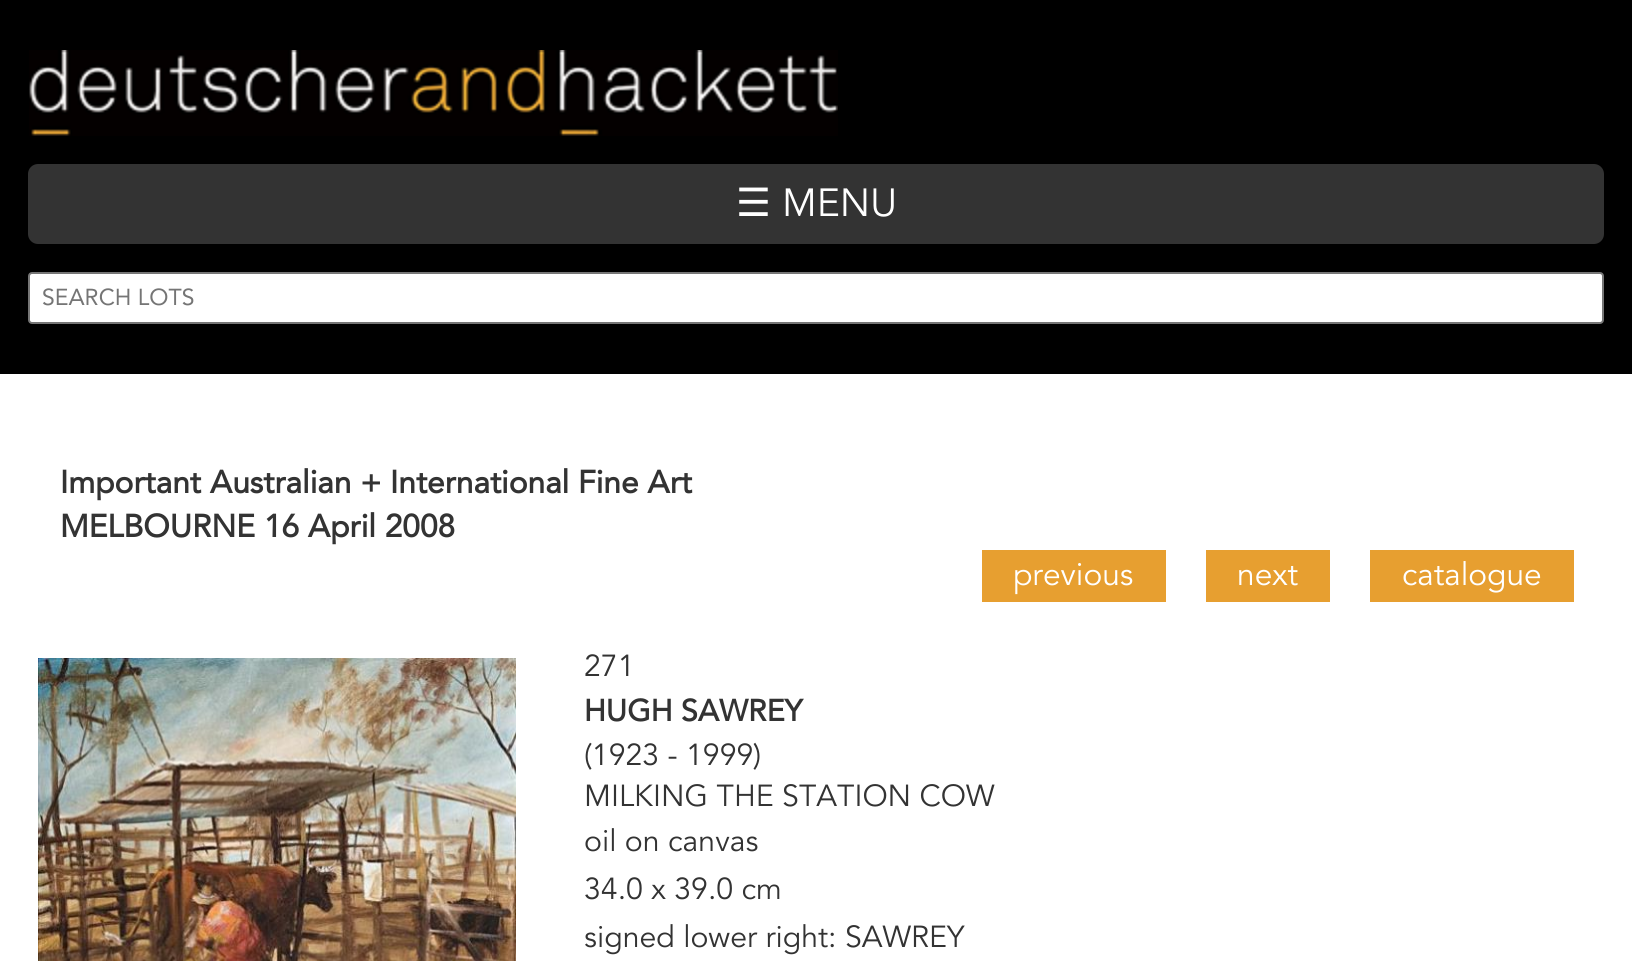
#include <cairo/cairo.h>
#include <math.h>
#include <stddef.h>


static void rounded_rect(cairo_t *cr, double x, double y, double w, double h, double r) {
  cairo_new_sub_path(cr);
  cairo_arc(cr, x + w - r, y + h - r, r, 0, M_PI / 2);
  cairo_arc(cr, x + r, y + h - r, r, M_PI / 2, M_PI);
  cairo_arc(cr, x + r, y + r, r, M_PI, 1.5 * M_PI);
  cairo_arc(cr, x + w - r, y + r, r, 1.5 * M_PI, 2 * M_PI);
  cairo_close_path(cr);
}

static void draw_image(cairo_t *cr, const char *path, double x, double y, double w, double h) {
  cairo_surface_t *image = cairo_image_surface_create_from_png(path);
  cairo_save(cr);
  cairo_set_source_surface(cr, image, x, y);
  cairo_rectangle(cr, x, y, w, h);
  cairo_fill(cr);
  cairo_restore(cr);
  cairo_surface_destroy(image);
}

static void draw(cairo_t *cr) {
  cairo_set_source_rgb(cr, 1, 1, 1);
  cairo_paint(cr);
  cairo_set_source_rgb(cr, 0, 0, 0);
  cairo_rectangle(cr, 0, 0, 1632, 374);
  cairo_fill(cr);
  draw_image(cr, "images/1.png", 29, 50, 809, 86);
  cairo_set_source_rgb(cr, 51 / 255.0, 51 / 255.0, 51 / 255.0);
  rounded_rect(cr, 28, 164, 1576, 80, 10);
  cairo_fill(cr);
  cairo_set_source_rgb(cr, 1, 1, 1);
  rounded_rect(cr, 29, 273, 1574, 50, 3);
  cairo_fill_preserve(cr);
  cairo_set_source_rgb(cr, 118 / 255.0, 118 / 255.0, 118 / 255.0);
  cairo_stroke(cr);
  cairo_set_source_rgb(cr, 231 / 255.0, 159 / 255.0, 48 / 255.0);
  cairo_rectangle(cr, 982, 550, 184, 52);
  cairo_fill(cr);
  cairo_rectangle(cr, 1206, 550, 124, 52);
  cairo_fill(cr);
  cairo_rectangle(cr, 1370, 550, 204, 52);
  cairo_fill(cr);
  draw_image(cr, "images/2.png", 38, 658, 478, 303);
  cairo_select_font_face(cr, "DejaVu Sans", CAIRO_FONT_SLANT_NORMAL, CAIRO_FONT_WEIGHT_NORMAL);
  cairo_set_font_size(cr, 39);
  cairo_set_source_rgb(cr, 1, 1, 1);
  cairo_move_to(cr, 736, 216);
  cairo_show_text(cr, "☰");
  cairo_select_font_face(cr, "Avenir", CAIRO_FONT_SLANT_NORMAL, CAIRO_FONT_WEIGHT_NORMAL);
  cairo_move_to(cr, 782, 216);
  cairo_show_text(cr, "MENU");
  cairo_select_font_face(cr, "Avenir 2", CAIRO_FONT_SLANT_NORMAL, CAIRO_FONT_WEIGHT_NORMAL);
  cairo_set_font_size(cr, 23);
  cairo_set_source_rgb(cr, 117 / 255.0, 117 / 255.0, 117 / 255.0);
  cairo_move_to(cr, 42, 305);
  cairo_show_text(cr, "SEARCH LOTS");
  cairo_select_font_face(cr, "Avenir", CAIRO_FONT_SLANT_NORMAL, CAIRO_FONT_WEIGHT_BOLD);
  cairo_set_font_size(cr, 31.7);
  cairo_set_source_rgb(cr, 51 / 255.0, 51 / 255.0, 51 / 255.0);
  cairo_move_to(cr, 60, 493);
  cairo_show_text(cr, "Important Australian + International Fine Art");
  cairo_move_to(cr, 60, 537);
  cairo_show_text(cr, "MELBOURNE 16 April 2008");
  cairo_select_font_face(cr, "Avenir", CAIRO_FONT_SLANT_NORMAL, CAIRO_FONT_WEIGHT_NORMAL);
  cairo_set_source_rgb(cr, 1, 1, 1);
  cairo_move_to(cr, 1013, 585);
  cairo_show_text(cr, "previous");
  cairo_move_to(cr, 1237, 585);
  cairo_show_text(cr, "next");
  cairo_move_to(cr, 1402, 585);
  cairo_show_text(cr, "catalogue");
  cairo_set_font_size(cr, 30.25);
  cairo_set_source_rgb(cr, 51 / 255.0, 51 / 255.0, 51 / 255.0);
  cairo_move_to(cr, 584, 676);
  cairo_show_text(cr, "271");
  cairo_select_font_face(cr, "Avenir", CAIRO_FONT_SLANT_NORMAL, CAIRO_FONT_WEIGHT_BOLD);
  cairo_move_to(cr, 584, 721);
  cairo_show_text(cr, "HUGH SAWREY");
  cairo_select_font_face(cr, "Avenir", CAIRO_FONT_SLANT_NORMAL, CAIRO_FONT_WEIGHT_NORMAL);
  cairo_move_to(cr, 584, 765);
  cairo_show_text(cr, "(1923 - 1999)");
  cairo_move_to(cr, 584, 806);
  cairo_show_text(cr, "MILKING THE STATION COW");
  cairo_move_to(cr, 584, 851);
  cairo_show_text(cr, "oil on canvas");
  cairo_move_to(cr, 584, 899);
  cairo_show_text(cr, "34.0 x 39.0 cm");
  cairo_move_to(cr, 584, 947);
  cairo_show_text(cr, "signed lower right: SAWREY");
}

int main(void) {
  cairo_surface_t *surface = cairo_image_surface_create(CAIRO_FORMAT_RGB24, 1632, 961);
  cairo_t *cr = cairo_create(surface);
  cairo_font_options_t *options = cairo_font_options_create();
  cairo_font_options_set_hint_metrics(options, CAIRO_HINT_METRICS_OFF);
  cairo_font_options_set_hint_style(options, CAIRO_HINT_STYLE_NONE);
  cairo_set_font_options(cr, options);
  cairo_set_miter_limit(cr, 4);
  draw(cr);
  cairo_surface_write_to_png(surface, "out.png");
  cairo_font_options_destroy(options);
  cairo_destroy(cr);
  cairo_surface_destroy(surface);
  return 0;
}
